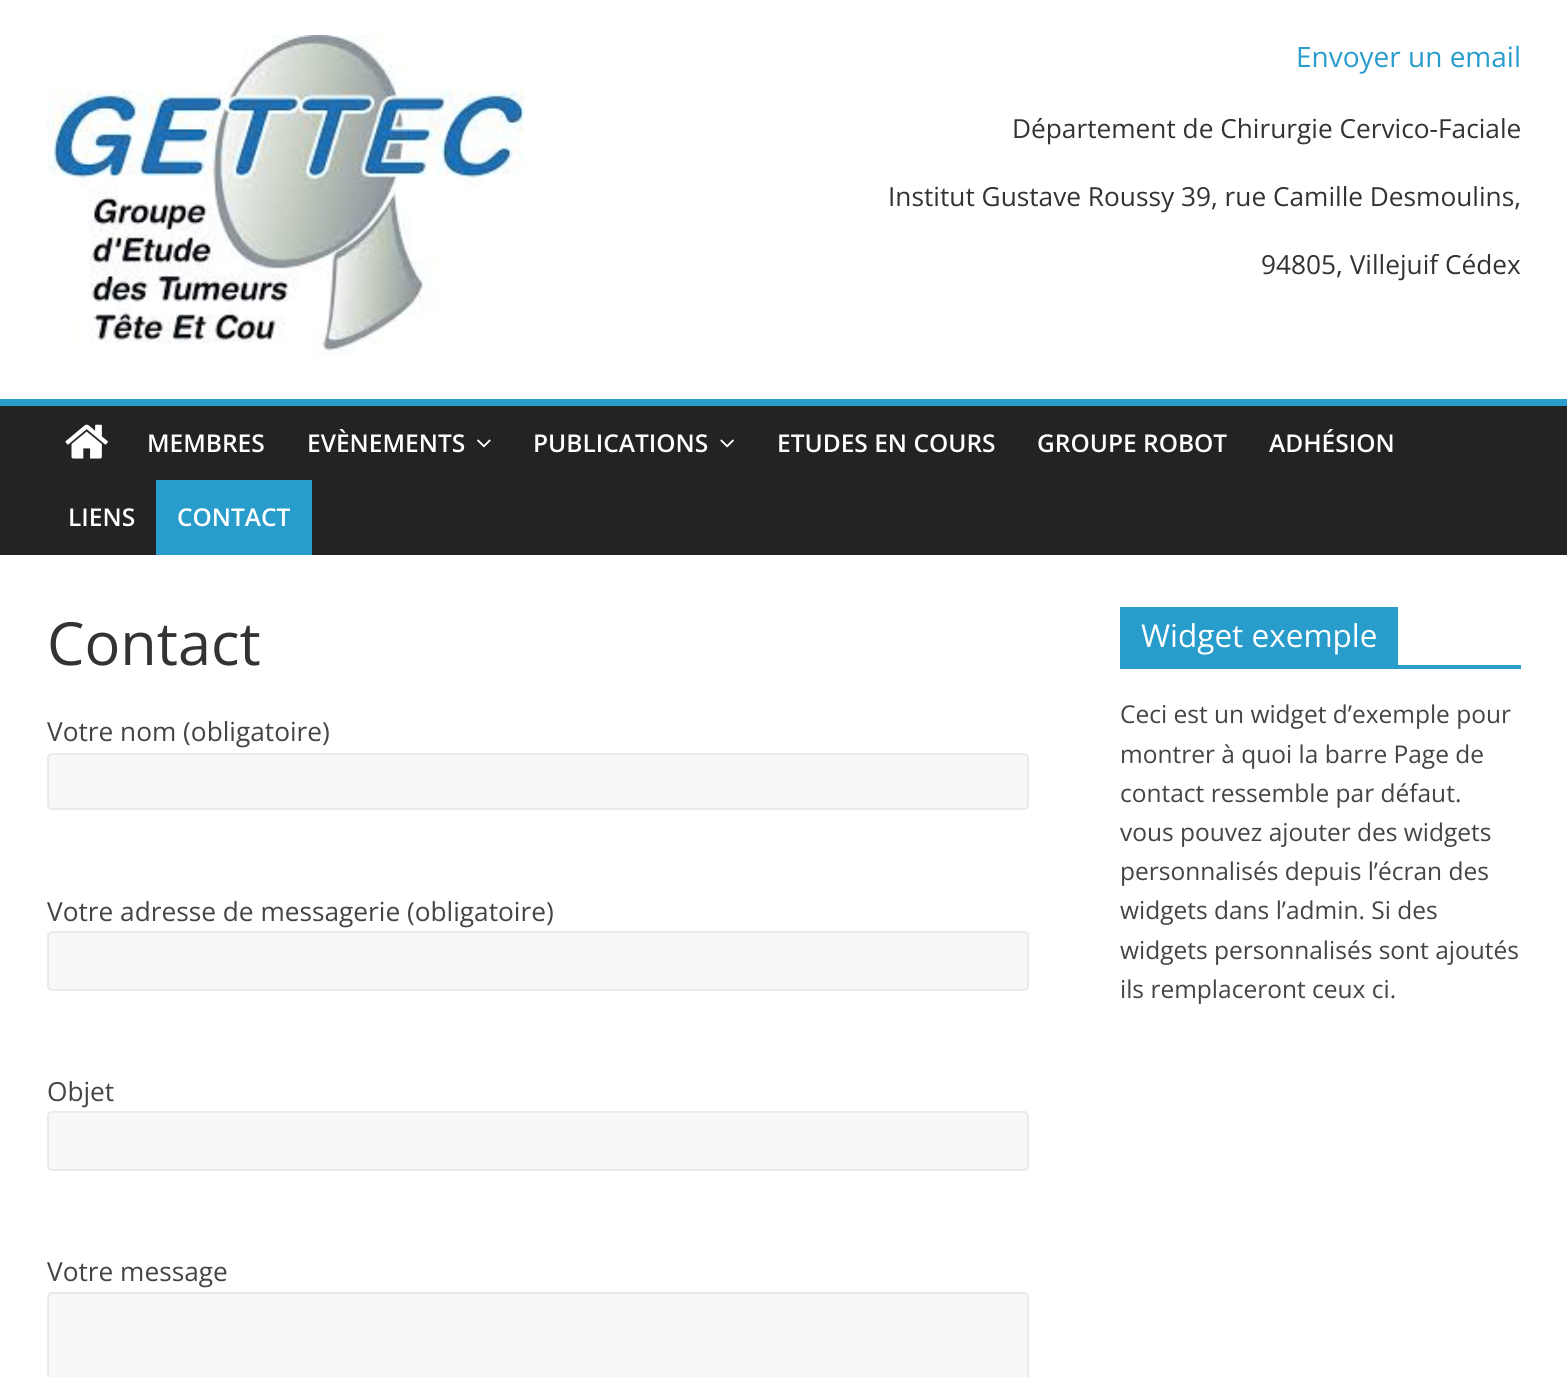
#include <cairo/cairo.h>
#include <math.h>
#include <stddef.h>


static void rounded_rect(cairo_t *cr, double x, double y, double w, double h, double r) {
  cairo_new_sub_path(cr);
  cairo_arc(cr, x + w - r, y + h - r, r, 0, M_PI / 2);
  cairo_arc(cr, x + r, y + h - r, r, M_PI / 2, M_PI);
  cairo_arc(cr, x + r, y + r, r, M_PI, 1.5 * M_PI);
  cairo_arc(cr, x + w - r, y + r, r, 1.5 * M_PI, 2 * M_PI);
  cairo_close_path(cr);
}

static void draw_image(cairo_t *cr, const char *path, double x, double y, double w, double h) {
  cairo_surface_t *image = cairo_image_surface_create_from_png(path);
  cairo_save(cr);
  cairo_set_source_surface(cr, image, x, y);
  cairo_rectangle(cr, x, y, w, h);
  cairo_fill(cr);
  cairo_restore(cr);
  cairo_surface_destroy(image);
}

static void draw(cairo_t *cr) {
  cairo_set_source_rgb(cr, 1, 1, 1);
  cairo_paint(cr);
  draw_image(cr, "images/1.png", 47, 35, 478, 320);
  cairo_set_source_rgb(cr, 35 / 255.0, 35 / 255.0, 35 / 255.0);
  cairo_rectangle(cr, 0, 406, 1567, 149);
  cairo_fill(cr);
  cairo_set_source_rgb(cr, 40 / 255.0, 157 / 255.0, 204 / 255.0);
  cairo_rectangle(cr, 0, 399, 1567, 7);
  cairo_fill(cr);
  draw_image(cr, "images/2.png", 65, 424, 43, 35);
  draw_image(cr, "images/3.png", 477, 439, 14, 9);
  draw_image(cr, "images/4.png", 720, 439, 14, 9);
  cairo_rectangle(cr, 156, 480, 156, 75);
  cairo_fill(cr);
  cairo_set_source_rgb(cr, 248 / 255.0, 248 / 255.0, 248 / 255.0);
  rounded_rect(cr, 48, 754, 980, 55, 4);
  cairo_fill_preserve(cr);
  cairo_set_source_rgb(cr, 234 / 255.0, 234 / 255.0, 234 / 255.0);
  cairo_stroke(cr);
  cairo_set_source_rgb(cr, 248 / 255.0, 248 / 255.0, 248 / 255.0);
  rounded_rect(cr, 48, 932, 980, 58, 4);
  cairo_fill_preserve(cr);
  cairo_set_source_rgb(cr, 234 / 255.0, 234 / 255.0, 234 / 255.0);
  cairo_stroke(cr);
  cairo_set_source_rgb(cr, 248 / 255.0, 248 / 255.0, 248 / 255.0);
  rounded_rect(cr, 48, 1112, 980, 58, 4);
  cairo_fill_preserve(cr);
  cairo_set_source_rgb(cr, 234 / 255.0, 234 / 255.0, 234 / 255.0);
  cairo_stroke(cr);
  cairo_set_source_rgb(cr, 248 / 255.0, 248 / 255.0, 248 / 255.0);
  rounded_rect(cr, 48, 1293, 980, 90, 4);
  cairo_fill_preserve(cr);
  cairo_set_source_rgb(cr, 234 / 255.0, 234 / 255.0, 234 / 255.0);
  cairo_stroke(cr);
  cairo_set_source_rgb(cr, 40 / 255.0, 157 / 255.0, 204 / 255.0);
  cairo_rectangle(cr, 1120, 665, 401, 4);
  cairo_fill(cr);
  cairo_rectangle(cr, 1120, 607, 278, 58);
  cairo_fill(cr);
  cairo_select_font_face(cr, "Open Sans", CAIRO_FONT_SLANT_NORMAL, CAIRO_FONT_WEIGHT_NORMAL);
  cairo_set_font_size(cr, 28);
  cairo_move_to(cr, 1296, 67);
  cairo_show_text(cr, "Envoyer un email");
  cairo_set_font_size(cr, 26.25);
  cairo_set_source_rgb(cr, 51 / 255.0, 51 / 255.0, 51 / 255.0);
  cairo_move_to(cr, 1012, 138);
  cairo_show_text(cr, "Département de Chirurgie Cervico-Faciale");
  cairo_move_to(cr, 888, 206);
  cairo_show_text(cr, "Institut Gustave Roussy 39, rue Camille Desmoulins,");
  cairo_move_to(cr, 1261, 274);
  cairo_show_text(cr, "94805, Villejuif Cédex");
  cairo_select_font_face(cr, "Open Sans SemiBold", CAIRO_FONT_SLANT_NORMAL, CAIRO_FONT_WEIGHT_NORMAL);
  cairo_set_font_size(cr, 24.5);
  cairo_set_source_rgb(cr, 1, 1, 1);
  cairo_move_to(cr, 147, 452);
  cairo_show_text(cr, "MEMBRES");
  cairo_move_to(cr, 307, 452);
  cairo_show_text(cr, "EVÈNEMENTS");
  cairo_move_to(cr, 533, 452);
  cairo_show_text(cr, "PUBLICATIONS");
  cairo_move_to(cr, 777, 452);
  cairo_show_text(cr, "ETUDES EN COURS");
  cairo_move_to(cr, 1037, 452);
  cairo_show_text(cr, "GROUPE ROBOT");
  cairo_move_to(cr, 1269, 452);
  cairo_show_text(cr, "ADHÉSION");
  cairo_move_to(cr, 68, 526);
  cairo_show_text(cr, "LIENS");
  cairo_move_to(cr, 177, 526);
  cairo_show_text(cr, "CONTACT");
  cairo_select_font_face(cr, "Open Sans", CAIRO_FONT_SLANT_NORMAL, CAIRO_FONT_WEIGHT_NORMAL);
  cairo_set_font_size(cr, 59.5);
  cairo_set_source_rgb(cr, 51 / 255.0, 51 / 255.0, 51 / 255.0);
  cairo_move_to(cr, 47, 665);
  cairo_show_text(cr, "Contact");
  cairo_set_font_size(cr, 26.25);
  cairo_set_source_rgb(cr, 68 / 255.0, 68 / 255.0, 68 / 255.0);
  cairo_move_to(cr, 47, 741);
  cairo_show_text(cr, "Votre nom (obligatoire)");
  cairo_move_to(cr, 47, 921);
  cairo_show_text(cr, "Votre adresse de messagerie (obligatoire)");
  cairo_move_to(cr, 47, 1101);
  cairo_show_text(cr, "Objet");
  cairo_move_to(cr, 47, 1281);
  cairo_show_text(cr, "Votre message");
  cairo_set_font_size(cr, 31.5);
  cairo_set_source_rgb(cr, 1, 1, 1);
  cairo_move_to(cr, 1141, 647);
  cairo_show_text(cr, "Widget exemple");
  cairo_set_font_size(cr, 24.5);
  cairo_set_source_rgb(cr, 68 / 255.0, 68 / 255.0, 68 / 255.0);
  cairo_move_to(cr, 1120, 723);
  cairo_show_text(cr, "Ceci est un widget d’exemple pour");
  cairo_move_to(cr, 1120, 763);
  cairo_show_text(cr, "montrer à quoi la barre Page de");
  cairo_move_to(cr, 1120, 802);
  cairo_show_text(cr, "contact ressemble par défaut.");
  cairo_move_to(cr, 1120, 841);
  cairo_show_text(cr, "vous pouvez ajouter des widgets");
  cairo_move_to(cr, 1120, 880);
  cairo_show_text(cr, "personnalisés depuis l’écran des");
  cairo_move_to(cr, 1120, 919);
  cairo_show_text(cr, "widgets dans l’admin. Si des");
  cairo_move_to(cr, 1120, 959);
  cairo_show_text(cr, "widgets personnalisés sont ajoutés");
  cairo_move_to(cr, 1120, 998);
  cairo_show_text(cr, "ils remplaceront ceux ci.");
}

int main(void) {
  cairo_surface_t *surface = cairo_image_surface_create(CAIRO_FORMAT_RGB24, 1567, 1377);
  cairo_t *cr = cairo_create(surface);
  cairo_font_options_t *options = cairo_font_options_create();
  cairo_font_options_set_hint_metrics(options, CAIRO_HINT_METRICS_OFF);
  cairo_font_options_set_hint_style(options, CAIRO_HINT_STYLE_NONE);
  cairo_set_font_options(cr, options);
  cairo_set_miter_limit(cr, 4);
  draw(cr);
  cairo_surface_write_to_png(surface, "out.png");
  cairo_font_options_destroy(options);
  cairo_destroy(cr);
  cairo_surface_destroy(surface);
  return 0;
}
